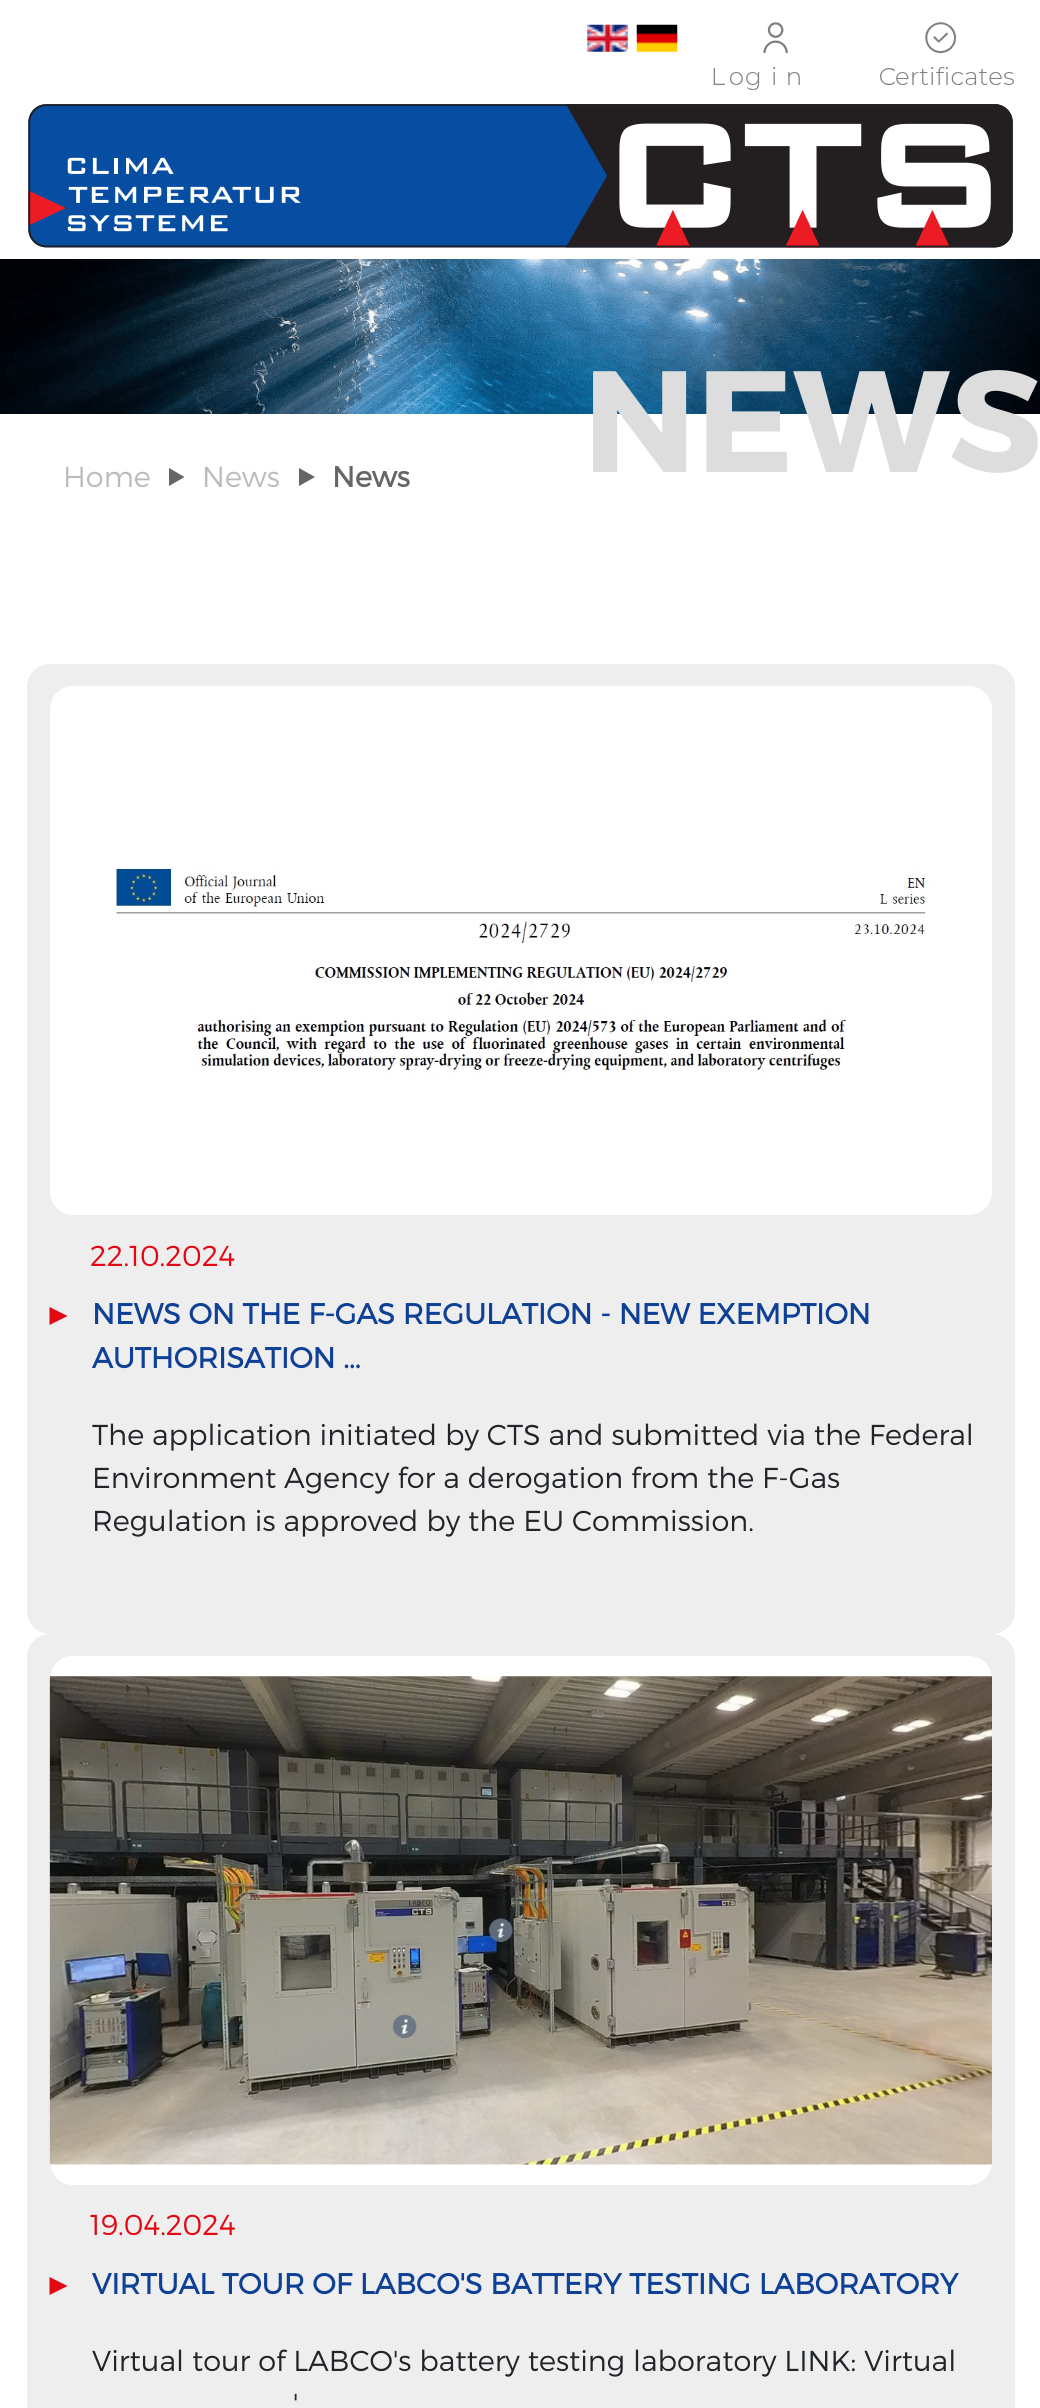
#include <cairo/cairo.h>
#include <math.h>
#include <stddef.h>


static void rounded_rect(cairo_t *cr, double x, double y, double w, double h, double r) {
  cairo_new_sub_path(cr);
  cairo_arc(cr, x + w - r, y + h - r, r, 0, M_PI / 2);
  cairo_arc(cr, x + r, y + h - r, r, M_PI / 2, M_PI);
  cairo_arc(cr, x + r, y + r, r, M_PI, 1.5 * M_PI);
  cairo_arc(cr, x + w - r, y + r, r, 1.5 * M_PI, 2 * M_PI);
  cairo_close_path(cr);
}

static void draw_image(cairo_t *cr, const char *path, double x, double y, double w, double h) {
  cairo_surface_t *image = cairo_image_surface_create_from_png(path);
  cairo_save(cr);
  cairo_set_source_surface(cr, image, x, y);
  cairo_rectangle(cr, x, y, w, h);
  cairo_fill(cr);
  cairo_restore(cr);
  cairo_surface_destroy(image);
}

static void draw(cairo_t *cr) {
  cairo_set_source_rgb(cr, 1, 1, 1);
  cairo_paint(cr);
  draw_image(cr, "images/1.png", 587, 24, 41, 28);
  draw_image(cr, "images/2.png", 636, 24, 42, 28);
  draw_image(cr, "images/3.png", 713, 22, 87, 68);
  draw_image(cr, "images/4.png", 880, 22, 134, 63);
  draw_image(cr, "images/5.png", 28, 104, 985, 144);
  draw_image(cr, "images/6.png", 0, 259, 1040, 155);
  cairo_set_source_rgb(cr, 102 / 255.0, 102 / 255.0, 102 / 255.0);
  cairo_new_path(cr);
  cairo_move_to(cr, 169, 486);
  cairo_line_to(cr, 169, 468);
  cairo_line_to(cr, 184.5, 477);
  cairo_close_path(cr);
  cairo_fill(cr);
  cairo_new_path(cr);
  cairo_move_to(cr, 299, 486);
  cairo_line_to(cr, 299, 468);
  cairo_line_to(cr, 315, 477);
  cairo_close_path(cr);
  cairo_fill(cr);
  cairo_set_source_rgb(cr, 238 / 255.0, 238 / 255.0, 238 / 255.0);
  rounded_rect(cr, 27, 664, 988, 970, 23);
  cairo_fill(cr);
  cairo_set_source_rgb(cr, 1, 1, 1);
  rounded_rect(cr, 50, 686, 942, 529, 23);
  cairo_fill(cr);
  draw_image(cr, "images/7.png", 115, 867, 818, 211);
  cairo_set_source_rgb(cr, 227 / 255.0, 6 / 255.0, 19 / 255.0);
  cairo_new_path(cr);
  cairo_move_to(cr, 49.5, 1325);
  cairo_line_to(cr, 49.5, 1307);
  cairo_line_to(cr, 67.5, 1316);
  cairo_close_path(cr);
  cairo_fill(cr);
  cairo_set_source_rgb(cr, 238 / 255.0, 238 / 255.0, 238 / 255.0);
  rounded_rect(cr, 27, 1634, 988, 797, 23);
  cairo_fill(cr);
  cairo_set_source_rgb(cr, 1, 1, 1);
  rounded_rect(cr, 50, 1656, 942, 529, 23);
  cairo_fill(cr);
  draw_image(cr, "images/8.png", 49, 1676, 943, 489);
  cairo_set_source_rgb(cr, 227 / 255.0, 6 / 255.0, 19 / 255.0);
  cairo_new_path(cr);
  cairo_move_to(cr, 49.5, 2295);
  cairo_line_to(cr, 49.5, 2277);
  cairo_line_to(cr, 67.5, 2286);
  cairo_close_path(cr);
  cairo_fill(cr);
  cairo_select_font_face(cr, "Montserrat", CAIRO_FONT_SLANT_NORMAL, CAIRO_FONT_WEIGHT_BOLD);
  cairo_set_font_size(cr, 144);
  cairo_set_source_rgb(cr, 221 / 255.0, 221 / 255.0, 221 / 255.0);
  cairo_move_to(cr, 583, 472);
  cairo_show_text(cr, "NEWS");
  cairo_select_font_face(cr, "Montserrat Light", CAIRO_FONT_SLANT_NORMAL, CAIRO_FONT_WEIGHT_NORMAL);
  cairo_set_font_size(cr, 28.8);
  cairo_set_source_rgb(cr, 187 / 255.0, 187 / 255.0, 187 / 255.0);
  cairo_move_to(cr, 63, 487);
  cairo_show_text(cr, "Home");
  cairo_move_to(cr, 202, 487);
  cairo_show_text(cr, "News");
  cairo_select_font_face(cr, "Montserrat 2", CAIRO_FONT_SLANT_NORMAL, CAIRO_FONT_WEIGHT_BOLD);
  cairo_set_source_rgb(cr, 102 / 255.0, 102 / 255.0, 102 / 255.0);
  cairo_move_to(cr, 332, 487);
  cairo_show_text(cr, "News");
  cairo_select_font_face(cr, "Montserrat Light", CAIRO_FONT_SLANT_NORMAL, CAIRO_FONT_WEIGHT_NORMAL);
  cairo_set_source_rgb(cr, 227 / 255.0, 6 / 255.0, 19 / 255.0);
  cairo_move_to(cr, 90, 1266);
  cairo_show_text(cr, "22.10.2024");
  cairo_select_font_face(cr, "Montserrat 2", CAIRO_FONT_SLANT_NORMAL, CAIRO_FONT_WEIGHT_BOLD);
  cairo_set_source_rgb(cr, 14 / 255.0, 64 / 255.0, 150 / 255.0);
  cairo_move_to(cr, 92, 1324);
  cairo_show_text(cr, "NEWS ON THE F-GAS REGULATION - NEW EXEMPTION");
  cairo_move_to(cr, 92, 1368);
  cairo_show_text(cr, "AUTHORISATION ...");
  cairo_select_font_face(cr, "Montserrat Light", CAIRO_FONT_SLANT_NORMAL, CAIRO_FONT_WEIGHT_NORMAL);
  cairo_set_source_rgb(cr, 33 / 255.0, 37 / 255.0, 41 / 255.0);
  cairo_move_to(cr, 92, 1445);
  cairo_show_text(cr, "The application initiated by CTS and submitted via the Federal");
  cairo_move_to(cr, 92, 1488);
  cairo_show_text(cr, "Environment Agency for a derogation from the F-Gas");
  cairo_move_to(cr, 92, 1531);
  cairo_show_text(cr, "Regulation is approved by the EU Commission.");
  cairo_set_source_rgb(cr, 227 / 255.0, 6 / 255.0, 19 / 255.0);
  cairo_move_to(cr, 90, 2235);
  cairo_show_text(cr, "19.04.2024");
  cairo_select_font_face(cr, "Montserrat 2", CAIRO_FONT_SLANT_NORMAL, CAIRO_FONT_WEIGHT_BOLD);
  cairo_set_source_rgb(cr, 14 / 255.0, 64 / 255.0, 150 / 255.0);
  cairo_move_to(cr, 92, 2294);
  cairo_show_text(cr, "VIRTUAL TOUR OF LABCO'S BATTERY TESTING LABORATORY");
  cairo_select_font_face(cr, "Montserrat Light", CAIRO_FONT_SLANT_NORMAL, CAIRO_FONT_WEIGHT_NORMAL);
  cairo_set_source_rgb(cr, 33 / 255.0, 37 / 255.0, 41 / 255.0);
  cairo_move_to(cr, 92, 2371);
  cairo_show_text(cr, "Virtual tour of LABCO's battery testing laboratory LINK: Virtual");
  cairo_move_to(cr, 293, 2414);
  cairo_show_text(cr, "'");
}

int main(void) {
  cairo_surface_t *surface = cairo_image_surface_create(CAIRO_FORMAT_RGB24, 1040, 2408);
  cairo_t *cr = cairo_create(surface);
  cairo_font_options_t *options = cairo_font_options_create();
  cairo_font_options_set_hint_metrics(options, CAIRO_HINT_METRICS_OFF);
  cairo_font_options_set_hint_style(options, CAIRO_HINT_STYLE_NONE);
  cairo_set_font_options(cr, options);
  cairo_set_miter_limit(cr, 4);
  draw(cr);
  cairo_surface_write_to_png(surface, "out.png");
  cairo_font_options_destroy(options);
  cairo_destroy(cr);
  cairo_surface_destroy(surface);
  return 0;
}
